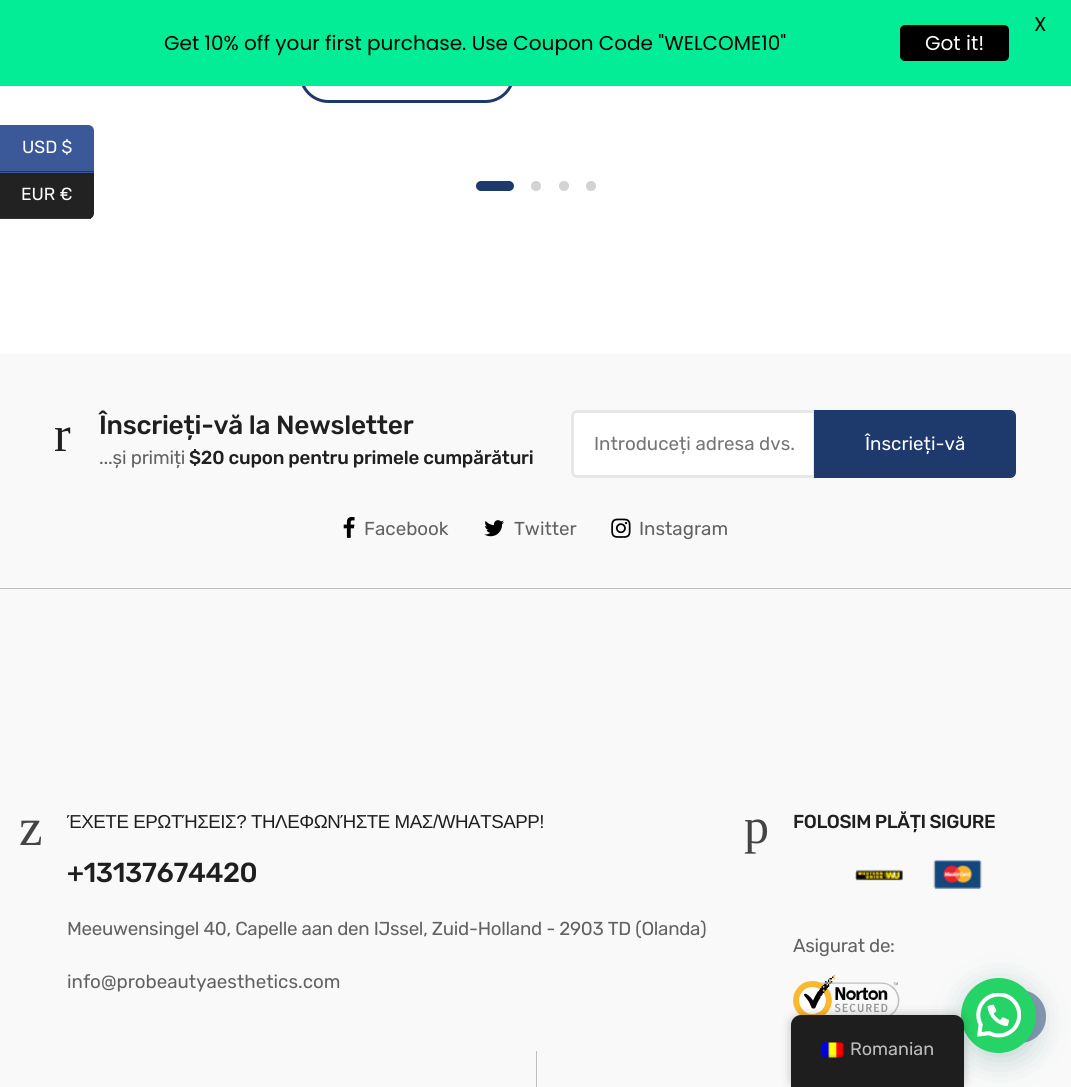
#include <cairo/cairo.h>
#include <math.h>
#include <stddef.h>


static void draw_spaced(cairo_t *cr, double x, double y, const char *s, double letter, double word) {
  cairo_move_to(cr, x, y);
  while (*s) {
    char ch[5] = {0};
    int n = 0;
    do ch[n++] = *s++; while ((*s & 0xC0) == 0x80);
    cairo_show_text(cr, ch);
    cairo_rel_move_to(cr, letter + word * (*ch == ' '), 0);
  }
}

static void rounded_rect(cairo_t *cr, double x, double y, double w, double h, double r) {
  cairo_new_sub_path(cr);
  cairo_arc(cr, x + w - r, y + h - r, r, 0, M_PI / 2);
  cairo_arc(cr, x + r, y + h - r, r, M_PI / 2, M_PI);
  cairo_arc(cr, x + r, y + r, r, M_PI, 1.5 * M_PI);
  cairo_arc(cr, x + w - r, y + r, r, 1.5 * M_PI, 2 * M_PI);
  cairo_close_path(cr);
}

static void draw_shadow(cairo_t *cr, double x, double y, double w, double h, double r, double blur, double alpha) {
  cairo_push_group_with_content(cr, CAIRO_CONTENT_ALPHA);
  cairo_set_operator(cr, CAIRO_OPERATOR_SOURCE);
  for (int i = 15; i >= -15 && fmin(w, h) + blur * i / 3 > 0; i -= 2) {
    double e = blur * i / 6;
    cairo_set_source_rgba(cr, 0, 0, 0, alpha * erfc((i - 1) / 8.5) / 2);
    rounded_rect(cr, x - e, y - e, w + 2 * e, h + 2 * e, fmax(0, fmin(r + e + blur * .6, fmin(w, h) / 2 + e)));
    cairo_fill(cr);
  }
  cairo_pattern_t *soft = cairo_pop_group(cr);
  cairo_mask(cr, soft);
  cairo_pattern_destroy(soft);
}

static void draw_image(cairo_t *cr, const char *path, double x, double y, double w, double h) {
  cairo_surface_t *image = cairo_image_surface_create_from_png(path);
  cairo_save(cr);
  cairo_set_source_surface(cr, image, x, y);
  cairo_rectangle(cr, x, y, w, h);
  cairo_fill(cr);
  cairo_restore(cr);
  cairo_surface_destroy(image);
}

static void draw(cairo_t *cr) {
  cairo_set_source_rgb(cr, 1, 1, 1);
  cairo_paint(cr);
  rounded_rect(cr, 300.5, 45.5, 213, 56, 28);
  cairo_set_source_rgb(cr, 30 / 255.0, 57 / 255.0, 108 / 255.0);
  cairo_set_line_width(cr, 3);
  cairo_stroke(cr);
  cairo_set_source_rgb(cr, 3 / 255.0, 237 / 255.0, 150 / 255.0);
  cairo_rectangle(cr, 0, 0, 1071, 86);
  cairo_fill(cr);
  cairo_set_source_rgb(cr, 0, 0, 0);
  rounded_rect(cr, 900, 25, 109, 36, 5);
  cairo_fill(cr);
  cairo_set_source_rgb(cr, 59 / 255.0, 89 / 255.0, 152 / 255.0);
  cairo_new_path(cr);
  cairo_move_to(cr, 0, 125);
  cairo_line_to(cr, 88, 125);
  cairo_curve_to(cr, 91.5, 125, 94, 127.5, 94, 131);
  cairo_line_to(cr, 94, 173);
  cairo_line_to(cr, 0, 173);
  cairo_close_path(cr);
  cairo_fill(cr);
  cairo_set_source_rgb(cr, 51 / 255.0, 51 / 255.0, 51 / 255.0);
  cairo_rectangle(cr, 0, 171, 94, 1);
  cairo_fill(cr);
  cairo_set_source_rgb(cr, 34 / 255.0, 34 / 255.0, 34 / 255.0);
  cairo_new_path(cr);
  cairo_move_to(cr, 0, 173);
  cairo_line_to(cr, 94, 173);
  cairo_line_to(cr, 94, 213);
  cairo_curve_to(cr, 94, 216.5, 91.5, 219, 88, 219);
  cairo_line_to(cr, 0, 219);
  cairo_close_path(cr);
  cairo_fill(cr);
  cairo_set_source_rgb(cr, 51 / 255.0, 51 / 255.0, 51 / 255.0);
  cairo_rectangle(cr, 0, 218, 91, 1);
  cairo_fill(cr);
  cairo_set_source_rgb(cr, 30 / 255.0, 57 / 255.0, 108 / 255.0);
  rounded_rect(cr, 476, 181, 38, 10, 5);
  cairo_fill(cr);
  cairo_set_source_rgb(cr, 211 / 255.0, 211 / 255.0, 211 / 255.0);
  cairo_arc(cr, 536, 186, 5, 0, 2 * M_PI);
  cairo_fill(cr);
  cairo_arc(cr, 564, 186, 5, 0, 2 * M_PI);
  cairo_fill(cr);
  cairo_arc(cr, 591, 186, 5, 0, 2 * M_PI);
  cairo_fill(cr);
  cairo_set_source_rgb(cr, 249 / 255.0, 249 / 255.0, 249 / 255.0);
  cairo_rectangle(cr, 0, 354, 1071, 733);
  cairo_fill(cr);
  cairo_set_source_rgb(cr, 190 / 255.0, 190 / 255.0, 190 / 255.0);
  cairo_rectangle(cr, 0, 588, 1071, 1);
  cairo_fill(cr);
  cairo_set_source_rgb(cr, 1, 1, 1);
  cairo_new_path(cr);
  cairo_move_to(cr, 577, 411.5);
  cairo_line_to(cr, 812, 411.5);
  cairo_curve_to(cr, 813.5, 411.5, 814.5, 412.5, 814.5, 414);
  cairo_line_to(cr, 814.5, 474);
  cairo_curve_to(cr, 814.5, 475.5, 813.5, 476.5, 812, 476.5);
  cairo_line_to(cr, 577, 476.5);
  cairo_curve_to(cr, 574.5, 476.5, 572.5, 474.5, 572.5, 472);
  cairo_line_to(cr, 572.5, 416);
  cairo_curve_to(cr, 572.5, 413.5, 574.5, 411.5, 577, 411.5);
  cairo_close_path(cr);
  cairo_fill_preserve(cr);
  cairo_set_source_rgb(cr, 231 / 255.0, 231 / 255.0, 231 / 255.0);
  cairo_stroke(cr);
  cairo_set_source_rgb(cr, 30 / 255.0, 57 / 255.0, 108 / 255.0);
  cairo_new_path(cr);
  cairo_move_to(cr, 814, 410);
  cairo_line_to(cr, 1010, 410);
  cairo_curve_to(cr, 1013.5, 410, 1016, 412.5, 1016, 416);
  cairo_line_to(cr, 1016, 472);
  cairo_curve_to(cr, 1016, 475.5, 1013.5, 478, 1010, 478);
  cairo_line_to(cr, 814, 478);
  cairo_close_path(cr);
  cairo_fill(cr);
  draw_image(cr, "images/1.png", 343, 516, 12, 22);
  draw_image(cr, "images/2.png", 484, 520, 20, 17);
  draw_image(cr, "images/3.png", 611, 518, 20, 20);
  draw_image(cr, "images/4.png", 855, 869, 48, 12);
  draw_image(cr, "images/5.png", 933, 859, 49, 30);
  draw_image(cr, "images/6.png", 793, 975, 107, 41);
  cairo_set_source_rgb(cr, 190 / 255.0, 190 / 255.0, 190 / 255.0);
  cairo_rectangle(cr, 536, 1051, 1, 36);
  cairo_fill(cr);
  cairo_set_source_rgb(cr, 140 / 255.0, 153 / 255.0, 179 / 255.0);
  rounded_rect(cr, 994, 990, 52, 53, 26);
  cairo_fill(cr);
  cairo_set_source_rgb(cr, 7 / 255.0, 94 / 255.0, 84 / 255.0);
  draw_shadow(cr, 963, 985, 75, 75, 37.5, 15, 0.24);
  cairo_set_source_rgb(cr, 37 / 255.0, 211 / 255.0, 102 / 255.0);
  cairo_arc(cr, 998.5, 1015.5, 37.5, 0, 2 * M_PI);
  cairo_fill(cr);
  draw_image(cr, "images/7.png", 976, 993, 45, 45);
  cairo_set_source_rgb(cr, 0, 0, 0);
  draw_shadow(cr, 791, 1015, 173, 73, 10, 5, 0.25);
  cairo_set_source_rgb(cr, 30 / 255.0, 30 / 255.0, 30 / 255.0);
  cairo_new_path(cr);
  cairo_move_to(cr, 801, 1015);
  cairo_line_to(cr, 954, 1015);
  cairo_curve_to(cr, 959.5, 1015, 964, 1019.5, 964, 1025);
  cairo_line_to(cr, 964, 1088);
  cairo_line_to(cr, 791, 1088);
  cairo_line_to(cr, 791, 1025);
  cairo_curve_to(cr, 791, 1019.5, 795.5, 1015, 801, 1015);
  cairo_close_path(cr);
  cairo_fill(cr);
  draw_image(cr, "images/8.png", 821, 1042, 24, 16);
  cairo_select_font_face(cr, "Poppins", CAIRO_FONT_SLANT_NORMAL, CAIRO_FONT_WEIGHT_NORMAL);
  cairo_set_font_size(cr, 20);
  cairo_set_source_rgb(cr, 0, 0, 0);
  cairo_move_to(cr, 1034, 31);
  cairo_show_text(cr, "X");
  cairo_move_to(cr, 164, 50);
  cairo_show_text(cr, "Get 10% off your first purchase. Use Coupon Code \"WELCOME10\"");
  cairo_set_source_rgb(cr, 1, 1, 1);
  cairo_move_to(cr, 925, 50);
  cairo_show_text(cr, "Got it!");
  cairo_select_font_face(cr, "Rubik", CAIRO_FONT_SLANT_NORMAL, CAIRO_FONT_WEIGHT_NORMAL);
  cairo_set_font_size(cr, 17.5);
  cairo_move_to(cr, 22, 153);
  cairo_show_text(cr, "USD $");
  cairo_move_to(cr, 21, 200);
  cairo_show_text(cr, "EUR €");
  cairo_select_font_face(cr, "Liberation Serif", CAIRO_FONT_SLANT_NORMAL, CAIRO_FONT_WEIGHT_NORMAL);
  cairo_set_font_size(cr, 50);
  cairo_set_source_rgb(cr, 31 / 255.0, 31 / 255.0, 31 / 255.0);
  cairo_move_to(cr, 54, 451);
  cairo_show_text(cr, "r");
  cairo_select_font_face(cr, "Rubik Medium", CAIRO_FONT_SLANT_NORMAL, CAIRO_FONT_WEIGHT_NORMAL);
  cairo_set_font_size(cr, 26.25);
  draw_spaced(cr, 99, 434, "Înscrieți-vă la Newsletter", -0.25, 0);
  cairo_select_font_face(cr, "Rubik", CAIRO_FONT_SLANT_NORMAL, CAIRO_FONT_WEIGHT_NORMAL);
  cairo_set_font_size(cr, 18.75);
  cairo_set_source_rgb(cr, 98 / 255.0, 98 / 255.0, 98 / 255.0);
  draw_spaced(cr, 99, 464, "...și primiți", -0.2, 0);
  cairo_select_font_face(cr, "Rubik Medium", CAIRO_FONT_SLANT_NORMAL, CAIRO_FONT_WEIGHT_NORMAL);
  cairo_set_source_rgb(cr, 31 / 255.0, 31 / 255.0, 31 / 255.0);
  draw_spaced(cr, 189, 464, "$20 cupon pentru primele cumpărături", -0.2, 0);
  cairo_select_font_face(cr, "Rubik", CAIRO_FONT_SLANT_NORMAL, CAIRO_FONT_WEIGHT_NORMAL);
  cairo_set_source_rgb(cr, 117 / 255.0, 117 / 255.0, 117 / 255.0);
  cairo_move_to(cr, 594, 450);
  cairo_show_text(cr, "Introduceți adresa dvs.");
  cairo_set_source_rgb(cr, 1, 1, 1);
  cairo_move_to(cr, 865, 450);
  cairo_show_text(cr, "Înscrieți-vă");
  cairo_set_source_rgb(cr, 98 / 255.0, 98 / 255.0, 98 / 255.0);
  cairo_move_to(cr, 364, 535);
  cairo_show_text(cr, "Facebook");
  cairo_move_to(cr, 514, 535);
  cairo_show_text(cr, "Twitter");
  cairo_move_to(cr, 639, 535);
  cairo_show_text(cr, "Instagram");
  cairo_select_font_face(cr, "Liberation Serif", CAIRO_FONT_SLANT_NORMAL, CAIRO_FONT_WEIGHT_NORMAL);
  cairo_set_font_size(cr, 53);
  cairo_set_source_rgb(cr, 68 / 255.0, 68 / 255.0, 68 / 255.0);
  cairo_move_to(cr, 19, 845);
  cairo_show_text(cr, "z");
  cairo_select_font_face(cr, "Liberation Sans", CAIRO_FONT_SLANT_NORMAL, CAIRO_FONT_WEIGHT_NORMAL);
  cairo_set_font_size(cr, 18.75);
  cairo_set_source_rgb(cr, 31 / 255.0, 31 / 255.0, 31 / 255.0);
  draw_spaced(cr, 67, 828, "ΈΧΕΤΕ ΕΡΩΤΉΣΕΙΣ? ΤΗΛΕΦΩΝΉΣΤΕ ΜΑΣ/WHATSAPP!", -0.45, 0);
  cairo_select_font_face(cr, "Rubik Medium", CAIRO_FONT_SLANT_NORMAL, CAIRO_FONT_WEIGHT_NORMAL);
  cairo_set_font_size(cr, 27.5);
  draw_spaced(cr, 67, 882, "+13137674420", -0.4, 0);
  cairo_select_font_face(cr, "Rubik", CAIRO_FONT_SLANT_NORMAL, CAIRO_FONT_WEIGHT_NORMAL);
  cairo_set_font_size(cr, 18.75);
  cairo_set_source_rgb(cr, 98 / 255.0, 98 / 255.0, 98 / 255.0);
  draw_spaced(cr, 67, 935, "Meeuwensingel 40, Capelle aan den IJssel, Zuid-Holland - 2903 TD (Olanda)", -0.28, 0);
  cairo_move_to(cr, 67, 988);
  cairo_show_text(cr, "info@probeautyaesthetics.com");
  cairo_select_font_face(cr, "Liberation Serif", CAIRO_FONT_SLANT_NORMAL, CAIRO_FONT_WEIGHT_NORMAL);
  cairo_set_font_size(cr, 50);
  cairo_set_source_rgb(cr, 68 / 255.0, 68 / 255.0, 68 / 255.0);
  cairo_move_to(cr, 744, 843);
  cairo_show_text(cr, "p");
  cairo_select_font_face(cr, "Rubik Medium", CAIRO_FONT_SLANT_NORMAL, CAIRO_FONT_WEIGHT_NORMAL);
  cairo_set_font_size(cr, 18.75);
  cairo_set_source_rgb(cr, 31 / 255.0, 31 / 255.0, 31 / 255.0);
  draw_spaced(cr, 793, 828, "FOLOSIM PLĂȚI SIGURE", -0.45, 0);
  cairo_select_font_face(cr, "Rubik", CAIRO_FONT_SLANT_NORMAL, CAIRO_FONT_WEIGHT_NORMAL);
  cairo_set_source_rgb(cr, 98 / 255.0, 98 / 255.0, 98 / 255.0);
  draw_spaced(cr, 793, 952, "Asigurat de:", -0.28, 0);
  cairo_set_font_size(cr, 18);
  cairo_set_source_rgb(cr, 189 / 255.0, 189 / 255.0, 189 / 255.0);
  cairo_move_to(cr, 850, 1055);
  cairo_show_text(cr, "Romanian");
}

int main(void) {
  cairo_surface_t *surface = cairo_image_surface_create(CAIRO_FORMAT_RGB24, 1071, 1087);
  cairo_t *cr = cairo_create(surface);
  cairo_font_options_t *options = cairo_font_options_create();
  cairo_font_options_set_hint_metrics(options, CAIRO_HINT_METRICS_OFF);
  cairo_font_options_set_hint_style(options, CAIRO_HINT_STYLE_NONE);
  cairo_set_font_options(cr, options);
  cairo_set_miter_limit(cr, 4);
  draw(cr);
  cairo_surface_write_to_png(surface, "out.png");
  cairo_font_options_destroy(options);
  cairo_destroy(cr);
  cairo_surface_destroy(surface);
  return 0;
}
